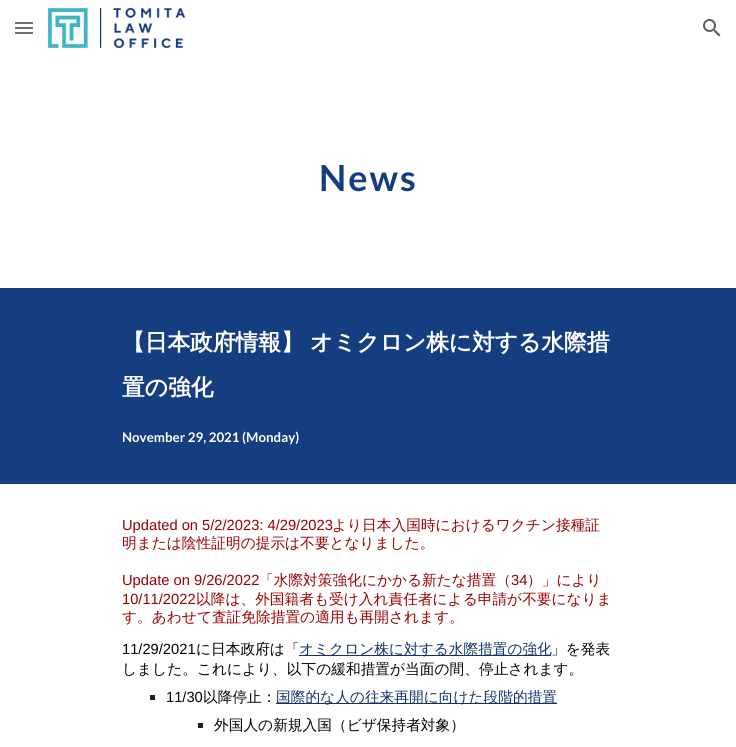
#include <cairo/cairo.h>
#include <math.h>
#include <stddef.h>


static void draw_spaced(cairo_t *cr, double x, double y, const char *s, double letter, double word) {
  cairo_move_to(cr, x, y);
  while (*s) {
    char ch[5] = {0};
    int n = 0;
    do ch[n++] = *s++; while ((*s & 0xC0) == 0x80);
    cairo_show_text(cr, ch);
    cairo_rel_move_to(cr, letter + word * (*ch == ' '), 0);
  }
}

static void draw_image(cairo_t *cr, const char *path, double x, double y, double w, double h) {
  cairo_surface_t *image = cairo_image_surface_create_from_png(path);
  cairo_save(cr);
  cairo_set_source_surface(cr, image, x, y);
  cairo_rectangle(cr, x, y, w, h);
  cairo_fill(cr);
  cairo_restore(cr);
  cairo_surface_destroy(image);
}

static void draw(cairo_t *cr) {
  cairo_set_source_rgb(cr, 1, 1, 1);
  cairo_paint(cr);
  cairo_set_source_rgb(cr, 112 / 255.0, 112 / 255.0, 112 / 255.0);
  cairo_rectangle(cr, 15, 22, 18, 2);
  cairo_fill(cr);
  cairo_rectangle(cr, 15, 27, 18, 2);
  cairo_fill(cr);
  cairo_rectangle(cr, 15, 32, 18, 2);
  cairo_fill(cr);
  draw_image(cr, "images/1.png", 48, 7, 138, 41);
  draw_image(cr, "images/2.png", 703, 19, 18, 18);
  cairo_set_source_rgb(cr, 21 / 255.0, 62 / 255.0, 128 / 255.0);
  cairo_rectangle(cr, 0, 288, 736, 196);
  cairo_fill(cr);
  cairo_set_source_rgb(cr, 17 / 255.0, 50 / 255.0, 102 / 255.0);
  cairo_rectangle(cr, 299, 655, 252, 1);
  cairo_fill(cr);
  cairo_set_source_rgb(cr, 33 / 255.0, 33 / 255.0, 33 / 255.0);
  cairo_rectangle(cr, 150, 695, 5, 5);
  cairo_fill(cr);
  cairo_set_source_rgb(cr, 17 / 255.0, 50 / 255.0, 102 / 255.0);
  cairo_rectangle(cr, 276, 703, 281, 1);
  cairo_fill(cr);
  cairo_set_source_rgb(cr, 33 / 255.0, 33 / 255.0, 33 / 255.0);
  cairo_rectangle(cr, 198, 723, 5, 5);
  cairo_fill(cr);
  cairo_select_font_face(cr, "Lato", CAIRO_FONT_SLANT_NORMAL, CAIRO_FONT_WEIGHT_BOLD);
  cairo_set_font_size(cr, 36);
  cairo_set_source_rgb(cr, 21 / 255.0, 62 / 255.0, 128 / 255.0);
  draw_spaced(cr, 319, 191, "News", 2, 0);
  cairo_select_font_face(cr, "WenQuanYi Zen Hei", CAIRO_FONT_SLANT_NORMAL, CAIRO_FONT_WEIGHT_BOLD);
  cairo_set_font_size(cr, 22.7);
  cairo_set_source_rgb(cr, 1, 1, 1);
  cairo_move_to(cr, 122, 350);
  cairo_show_text(cr, "【日本政府情報】");
  cairo_move_to(cr, 310, 350);
  cairo_show_text(cr, "オミクロン株に対する水際措");
  cairo_move_to(cr, 122, 395);
  cairo_show_text(cr, "置の強化");
  cairo_select_font_face(cr, "Lato", CAIRO_FONT_SLANT_NORMAL, CAIRO_FONT_WEIGHT_BOLD);
  cairo_set_font_size(cr, 13.3);
  cairo_move_to(cr, 122, 442);
  cairo_show_text(cr, "November 29, 2021 (Monday)");
  cairo_select_font_face(cr, "Liberation Sans", CAIRO_FONT_SLANT_NORMAL, CAIRO_FONT_WEIGHT_NORMAL);
  cairo_set_font_size(cr, 14.7);
  cairo_set_source_rgb(cr, 152 / 255.0, 0, 0);
  cairo_move_to(cr, 122, 530);
  cairo_show_text(cr, "Updated on 5/2/2023: 4/29/2023");
  cairo_select_font_face(cr, "WenQuanYi Zen Hei Medium", CAIRO_FONT_SLANT_NORMAL, CAIRO_FONT_WEIGHT_NORMAL);
  cairo_move_to(cr, 332, 530);
  cairo_show_text(cr, "より日本入国時におけるワクチン接種証");
  cairo_move_to(cr, 122, 548);
  cairo_show_text(cr, "明または陰性証明の提示は不要となりました。");
  cairo_select_font_face(cr, "Liberation Sans", CAIRO_FONT_SLANT_NORMAL, CAIRO_FONT_WEIGHT_NORMAL);
  cairo_move_to(cr, 122, 585);
  cairo_show_text(cr, "Update on 9/26/2022");
  cairo_select_font_face(cr, "WenQuanYi Zen Hei Medium", CAIRO_FONT_SLANT_NORMAL, CAIRO_FONT_WEIGHT_NORMAL);
  cairo_move_to(cr, 259, 585);
  cairo_show_text(cr, "「水際対策強化にかかる新たな措置（");
  cairo_select_font_face(cr, "Liberation Sans", CAIRO_FONT_SLANT_NORMAL, CAIRO_FONT_WEIGHT_NORMAL);
  cairo_move_to(cr, 511, 585);
  cairo_show_text(cr, "34");
  cairo_select_font_face(cr, "WenQuanYi Zen Hei Medium", CAIRO_FONT_SLANT_NORMAL, CAIRO_FONT_WEIGHT_NORMAL);
  cairo_move_to(cr, 527, 585);
  cairo_show_text(cr, "）」により");
  cairo_select_font_face(cr, "Liberation Sans", CAIRO_FONT_SLANT_NORMAL, CAIRO_FONT_WEIGHT_NORMAL);
  cairo_move_to(cr, 122, 604);
  cairo_show_text(cr, "10/11/2022");
  cairo_select_font_face(cr, "WenQuanYi Zen Hei Medium", CAIRO_FONT_SLANT_NORMAL, CAIRO_FONT_WEIGHT_NORMAL);
  cairo_move_to(cr, 196, 604);
  cairo_show_text(cr, "以降は、外国籍者も受け入れ責任者による申請が不要になりま");
  cairo_move_to(cr, 122, 622);
  cairo_show_text(cr, "す。あわせて査証免除措置の適用も再開されます。");
  cairo_select_font_face(cr, "Liberation Sans", CAIRO_FONT_SLANT_NORMAL, CAIRO_FONT_WEIGHT_NORMAL);
  cairo_set_source_rgb(cr, 0, 0, 0);
  cairo_move_to(cr, 122, 654);
  cairo_show_text(cr, "11/29/2021");
  cairo_select_font_face(cr, "WenQuanYi Zen Hei Medium", CAIRO_FONT_SLANT_NORMAL, CAIRO_FONT_WEIGHT_NORMAL);
  cairo_move_to(cr, 196, 654);
  cairo_show_text(cr, "に日本政府は「");
  cairo_set_source_rgb(cr, 17 / 255.0, 50 / 255.0, 102 / 255.0);
  cairo_move_to(cr, 299, 654);
  cairo_show_text(cr, "オミクロン株に対する水際措置の強化");
  cairo_set_source_rgb(cr, 0, 0, 0);
  cairo_move_to(cr, 551, 654);
  cairo_show_text(cr, "」を発表");
  cairo_move_to(cr, 122, 674);
  cairo_show_text(cr, "しました。これにより、以下の緩和措置が当面の間、停止されます。");
  cairo_select_font_face(cr, "Liberation Sans", CAIRO_FONT_SLANT_NORMAL, CAIRO_FONT_WEIGHT_NORMAL);
  cairo_move_to(cr, 166, 702);
  cairo_show_text(cr, "11/30");
  cairo_select_font_face(cr, "WenQuanYi Zen Hei Medium", CAIRO_FONT_SLANT_NORMAL, CAIRO_FONT_WEIGHT_NORMAL);
  cairo_move_to(cr, 203, 702);
  cairo_show_text(cr, "以降停止：");
  cairo_set_source_rgb(cr, 17 / 255.0, 50 / 255.0, 102 / 255.0);
  cairo_move_to(cr, 276, 702);
  cairo_show_text(cr, "国際的な人の往来再開に向けた段階的措置");
  cairo_set_source_rgb(cr, 0, 0, 0);
  cairo_move_to(cr, 214, 730);
  cairo_show_text(cr, "外国人の新規入国（ビザ保持者対象）");
}

int main(void) {
  cairo_surface_t *surface = cairo_image_surface_create(CAIRO_FORMAT_RGB24, 736, 747);
  cairo_t *cr = cairo_create(surface);
  cairo_font_options_t *options = cairo_font_options_create();
  cairo_font_options_set_hint_metrics(options, CAIRO_HINT_METRICS_OFF);
  cairo_font_options_set_hint_style(options, CAIRO_HINT_STYLE_NONE);
  cairo_set_font_options(cr, options);
  cairo_set_miter_limit(cr, 4);
  draw(cr);
  cairo_surface_write_to_png(surface, "out.png");
  cairo_font_options_destroy(options);
  cairo_destroy(cr);
  cairo_surface_destroy(surface);
  return 0;
}
